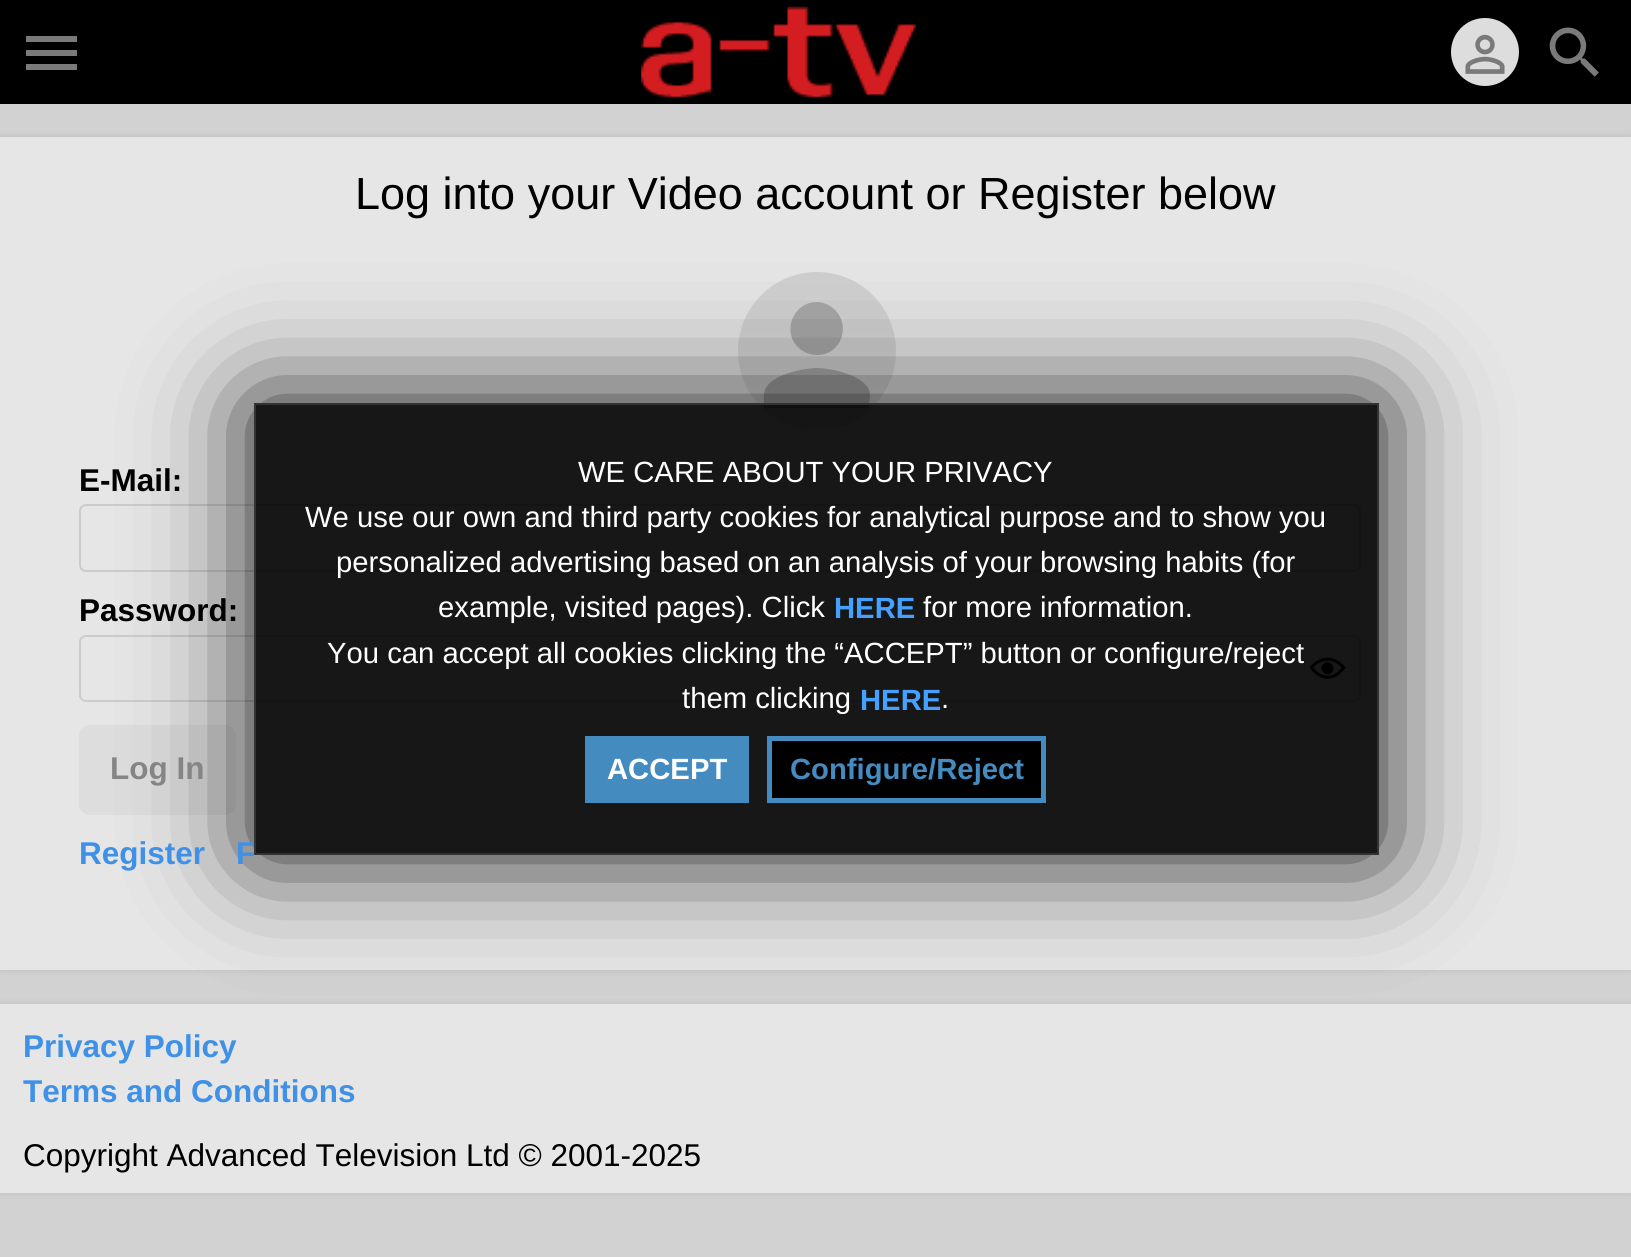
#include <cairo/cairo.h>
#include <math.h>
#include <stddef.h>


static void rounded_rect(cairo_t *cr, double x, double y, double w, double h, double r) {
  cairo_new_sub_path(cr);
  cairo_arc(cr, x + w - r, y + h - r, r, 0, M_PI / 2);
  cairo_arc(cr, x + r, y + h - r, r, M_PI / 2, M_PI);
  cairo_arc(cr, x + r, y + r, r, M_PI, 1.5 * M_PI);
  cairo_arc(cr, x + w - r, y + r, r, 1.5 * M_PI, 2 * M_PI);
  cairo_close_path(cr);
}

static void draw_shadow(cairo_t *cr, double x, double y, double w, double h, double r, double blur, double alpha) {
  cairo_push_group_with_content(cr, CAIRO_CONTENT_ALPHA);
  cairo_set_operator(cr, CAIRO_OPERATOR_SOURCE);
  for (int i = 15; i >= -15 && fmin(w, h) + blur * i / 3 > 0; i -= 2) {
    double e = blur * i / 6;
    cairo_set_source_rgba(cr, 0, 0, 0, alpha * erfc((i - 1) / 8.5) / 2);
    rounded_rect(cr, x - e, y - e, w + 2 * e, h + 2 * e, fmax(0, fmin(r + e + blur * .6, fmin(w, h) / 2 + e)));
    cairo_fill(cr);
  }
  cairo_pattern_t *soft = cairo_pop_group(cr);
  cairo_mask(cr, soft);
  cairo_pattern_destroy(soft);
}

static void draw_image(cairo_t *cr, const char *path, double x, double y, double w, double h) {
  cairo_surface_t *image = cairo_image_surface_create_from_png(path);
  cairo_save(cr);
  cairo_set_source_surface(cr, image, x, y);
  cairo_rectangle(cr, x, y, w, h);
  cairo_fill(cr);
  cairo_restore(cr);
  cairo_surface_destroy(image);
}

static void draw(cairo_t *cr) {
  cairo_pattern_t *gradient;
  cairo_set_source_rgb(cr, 210 / 255.0, 210 / 255.0, 210 / 255.0);
  cairo_paint(cr);
  cairo_set_source_rgb(cr, 0, 0, 0);
  cairo_rectangle(cr, 0, 0, 1631, 104);
  cairo_fill(cr);
  cairo_set_source_rgb(cr, 122 / 255.0, 122 / 255.0, 122 / 255.0);
  cairo_new_path(cr);
  cairo_move_to(cr, 26, 36);
  cairo_line_to(cr, 77, 36);
  cairo_line_to(cr, 77, 42);
  cairo_line_to(cr, 26, 42);
  cairo_close_path(cr);
  cairo_move_to(cr, 26, 56);
  cairo_line_to(cr, 26, 50);
  cairo_line_to(cr, 77, 50);
  cairo_line_to(cr, 77, 56);
  cairo_close_path(cr);
  cairo_move_to(cr, 26, 70);
  cairo_line_to(cr, 26, 64);
  cairo_line_to(cr, 77, 64);
  cairo_line_to(cr, 77, 70);
  cairo_close_path(cr);
  cairo_fill(cr);
  draw_image(cr, "images/1.png", 641, 6, 275, 91);
  cairo_set_source_rgb(cr, 221 / 255.0, 221 / 255.0, 221 / 255.0);
  cairo_arc(cr, 1485, 52, 34, 0, 2 * M_PI);
  cairo_fill(cr);
  draw_image(cr, "images/2.png", 1465, 34, 40, 40);
  draw_image(cr, "images/3.png", 1549, 27, 50, 50);
  cairo_set_source_rgb(cr, 0, 0, 0);
  draw_shadow(cr, 0, 137, 1631, 833, 0, 3.5, 0.1);
  cairo_set_source_rgb(cr, 230 / 255.0, 230 / 255.0, 230 / 255.0);
  cairo_rectangle(cr, 0, 137, 1631, 833);
  cairo_fill(cr);
  gradient = cairo_pattern_create_linear(817, 272, 817, 430);
  cairo_pattern_add_color_stop_rgba(gradient, 0, 207 / 255.0, 207 / 255.0, 207 / 255.0, 1);
  cairo_pattern_add_color_stop_rgba(gradient, 1, 216 / 255.0, 216 / 255.0, 216 / 255.0, 1);
  cairo_set_source(cr, gradient);
  cairo_pattern_destroy(gradient);
  cairo_arc(cr, 817, 351, 79, 0, 2 * M_PI);
  cairo_fill(cr);
  cairo_set_source_rgb(cr, 168 / 255.0, 168 / 255.0, 168 / 255.0);
  cairo_new_path(cr);
  cairo_move_to(cr, 817, 368);
  cairo_curve_to(cr, 831, 368, 863, 375, 869, 390);
  cairo_curve_to(cr, 871, 395, 869, 402, 869, 408);
  cairo_line_to(cr, 764, 408);
  cairo_curve_to(cr, 764, 402, 763, 395, 765, 390);
  cairo_curve_to(cr, 770, 375, 803, 368, 817, 368);
  cairo_close_path(cr);
  cairo_move_to(cr, 817, 355);
  cairo_curve_to(cr, 811, 355, 805, 353, 800, 349);
  cairo_curve_to(cr, 781, 334, 792, 302, 817, 302);
  cairo_curve_to(cr, 823, 302, 829, 305, 833, 308);
  cairo_curve_to(cr, 852, 324, 842, 355, 817, 355);
  cairo_close_path(cr);
  cairo_fill(cr);
  rounded_rect(cr, 80, 505, 1280, 66, 6);
  cairo_set_source_rgb(cr, 204 / 255.0, 204 / 255.0, 204 / 255.0);
  cairo_stroke(cr);
  rounded_rect(cr, 80, 636, 1280, 65, 6);
  cairo_stroke(cr);
  draw_image(cr, "images/4.png", 1310, 657, 36, 22);
  cairo_set_source_rgb(cr, 221 / 255.0, 221 / 255.0, 221 / 255.0);
  rounded_rect(cr, 79, 725, 157, 90, 11);
  cairo_fill(cr);
  cairo_set_source_rgb(cr, 0, 0, 0);
  draw_shadow(cr, 0, 1004, 1631, 189, 0, 3.5, 0.1);
  cairo_set_source_rgb(cr, 230 / 255.0, 230 / 255.0, 230 / 255.0);
  cairo_rectangle(cr, 0, 1004, 1631, 189);
  cairo_fill(cr);
  cairo_save(cr);
  cairo_set_fill_rule(cr, CAIRO_FILL_RULE_EVEN_ODD);
  cairo_new_path(cr);
  cairo_move_to(cr, 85, 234);
  cairo_line_to(cr, 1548, 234);
  cairo_line_to(cr, 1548, 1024);
  cairo_line_to(cr, 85, 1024);
  cairo_close_path(cr);
  cairo_move_to(cr, 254, 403);
  cairo_line_to(cr, 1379, 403);
  cairo_line_to(cr, 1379, 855);
  cairo_line_to(cr, 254, 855);
  cairo_close_path(cr);
  cairo_clip(cr);
  cairo_set_source_rgb(cr, 0, 0, 0);
  draw_shadow(cr, 254, 403, 1125, 452, 0, 56, 0.9);
  cairo_restore(cr);
  cairo_select_font_face(cr, "Liberation Sans", CAIRO_FONT_SLANT_NORMAL, CAIRO_FONT_WEIGHT_NORMAL);
  cairo_set_font_size(cr, 45);
  cairo_set_source_rgb(cr, 0, 0, 0);
  cairo_move_to(cr, 355, 209);
  cairo_show_text(cr, "Log into your Video account or Register below");
  cairo_select_font_face(cr, "Liberation Sans", CAIRO_FONT_SLANT_NORMAL, CAIRO_FONT_WEIGHT_BOLD);
  cairo_set_font_size(cr, 31.5);
  cairo_move_to(cr, 79, 491);
  cairo_show_text(cr, "E-Mail:");
  cairo_move_to(cr, 79, 621);
  cairo_show_text(cr, "Password:");
  cairo_set_source_rgb(cr, 133 / 255.0, 133 / 255.0, 133 / 255.0);
  cairo_move_to(cr, 110, 779);
  cairo_show_text(cr, "Log In");
  cairo_set_source_rgb(cr, 62 / 255.0, 145 / 255.0, 230 / 255.0);
  cairo_move_to(cr, 79, 864);
  cairo_show_text(cr, "Register");
  cairo_move_to(cr, 236, 864);
  cairo_show_text(cr, "F");
  cairo_move_to(cr, 23, 1057);
  cairo_show_text(cr, "Privacy Policy");
  cairo_move_to(cr, 23, 1102);
  cairo_show_text(cr, "Terms and Conditions");
  cairo_select_font_face(cr, "Liberation Sans", CAIRO_FONT_SLANT_NORMAL, CAIRO_FONT_WEIGHT_NORMAL);
  cairo_set_source_rgb(cr, 0, 0, 0);
  cairo_move_to(cr, 23, 1166);
  cairo_show_text(cr, "Copyright Advanced Television Ltd © 2001-2025");
  cairo_set_source_rgba(cr, 0, 0, 0, 0.9);
  cairo_rectangle(cr, 255, 404, 1123, 450);
  cairo_fill_preserve(cr);
  cairo_set_source_rgb(cr, 51 / 255.0, 51 / 255.0, 51 / 255.0);
  cairo_stroke(cr);
  cairo_set_font_size(cr, 29.25);
  cairo_set_source_rgb(cr, 1, 1, 1);
  cairo_move_to(cr, 578, 482);
  cairo_show_text(cr, "WE CARE ABOUT YOUR PRIVACY");
  cairo_move_to(cr, 305, 527);
  cairo_show_text(cr, "We use our own and third party cookies for analytical purpose and to show you");
  cairo_move_to(cr, 336, 572);
  cairo_show_text(cr, "personalized advertising based on an analysis of your browsing habits (for");
  cairo_move_to(cr, 438, 617);
  cairo_show_text(cr, "example, visited pages). Click");
  cairo_select_font_face(cr, "Liberation Sans", CAIRO_FONT_SLANT_NORMAL, CAIRO_FONT_WEIGHT_BOLD);
  cairo_set_source_rgb(cr, 69 / 255.0, 161 / 255.0, 1);
  cairo_move_to(cr, 834, 618);
  cairo_show_text(cr, "HERE");
  cairo_select_font_face(cr, "Liberation Sans", CAIRO_FONT_SLANT_NORMAL, CAIRO_FONT_WEIGHT_NORMAL);
  cairo_set_source_rgb(cr, 1, 1, 1);
  cairo_move_to(cr, 923, 617);
  cairo_show_text(cr, "for more information.");
  cairo_move_to(cr, 327, 663);
  cairo_show_text(cr, "You can accept all cookies clicking the “ACCEPT” button or configure/reject");
  cairo_move_to(cr, 682, 708);
  cairo_show_text(cr, "them clicking");
  cairo_select_font_face(cr, "Liberation Sans", CAIRO_FONT_SLANT_NORMAL, CAIRO_FONT_WEIGHT_BOLD);
  cairo_set_source_rgb(cr, 69 / 255.0, 161 / 255.0, 1);
  cairo_move_to(cr, 860, 710);
  cairo_show_text(cr, "HERE");
  cairo_select_font_face(cr, "Liberation Sans", CAIRO_FONT_SLANT_NORMAL, CAIRO_FONT_WEIGHT_NORMAL);
  cairo_set_source_rgb(cr, 1, 1, 1);
  cairo_move_to(cr, 941, 708);
  cairo_show_text(cr, ".");
  cairo_set_source_rgb(cr, 68 / 255.0, 139 / 255.0, 192 / 255.0);
  cairo_rectangle(cr, 585, 736, 164, 67);
  cairo_fill(cr);
  cairo_select_font_face(cr, "Liberation Sans", CAIRO_FONT_SLANT_NORMAL, CAIRO_FONT_WEIGHT_BOLD);
  cairo_set_source_rgb(cr, 1, 1, 1);
  cairo_move_to(cr, 607, 779);
  cairo_show_text(cr, "ACCEPT");
  cairo_set_source_rgb(cr, 0, 0, 0);
  cairo_rectangle(cr, 769.5, 738.5, 274, 62);
  cairo_fill_preserve(cr);
  cairo_set_source_rgb(cr, 68 / 255.0, 139 / 255.0, 192 / 255.0);
  cairo_set_line_width(cr, 5);
  cairo_stroke(cr);
  cairo_move_to(cr, 790, 779);
  cairo_show_text(cr, "Configure/Reject");
}

int main(void) {
  cairo_surface_t *surface = cairo_image_surface_create(CAIRO_FORMAT_RGB24, 1631, 1257);
  cairo_t *cr = cairo_create(surface);
  cairo_font_options_t *options = cairo_font_options_create();
  cairo_font_options_set_hint_metrics(options, CAIRO_HINT_METRICS_OFF);
  cairo_font_options_set_hint_style(options, CAIRO_HINT_STYLE_NONE);
  cairo_set_font_options(cr, options);
  cairo_set_miter_limit(cr, 4);
  draw(cr);
  cairo_surface_write_to_png(surface, "out.png");
  cairo_font_options_destroy(options);
  cairo_destroy(cr);
  cairo_surface_destroy(surface);
  return 0;
}
